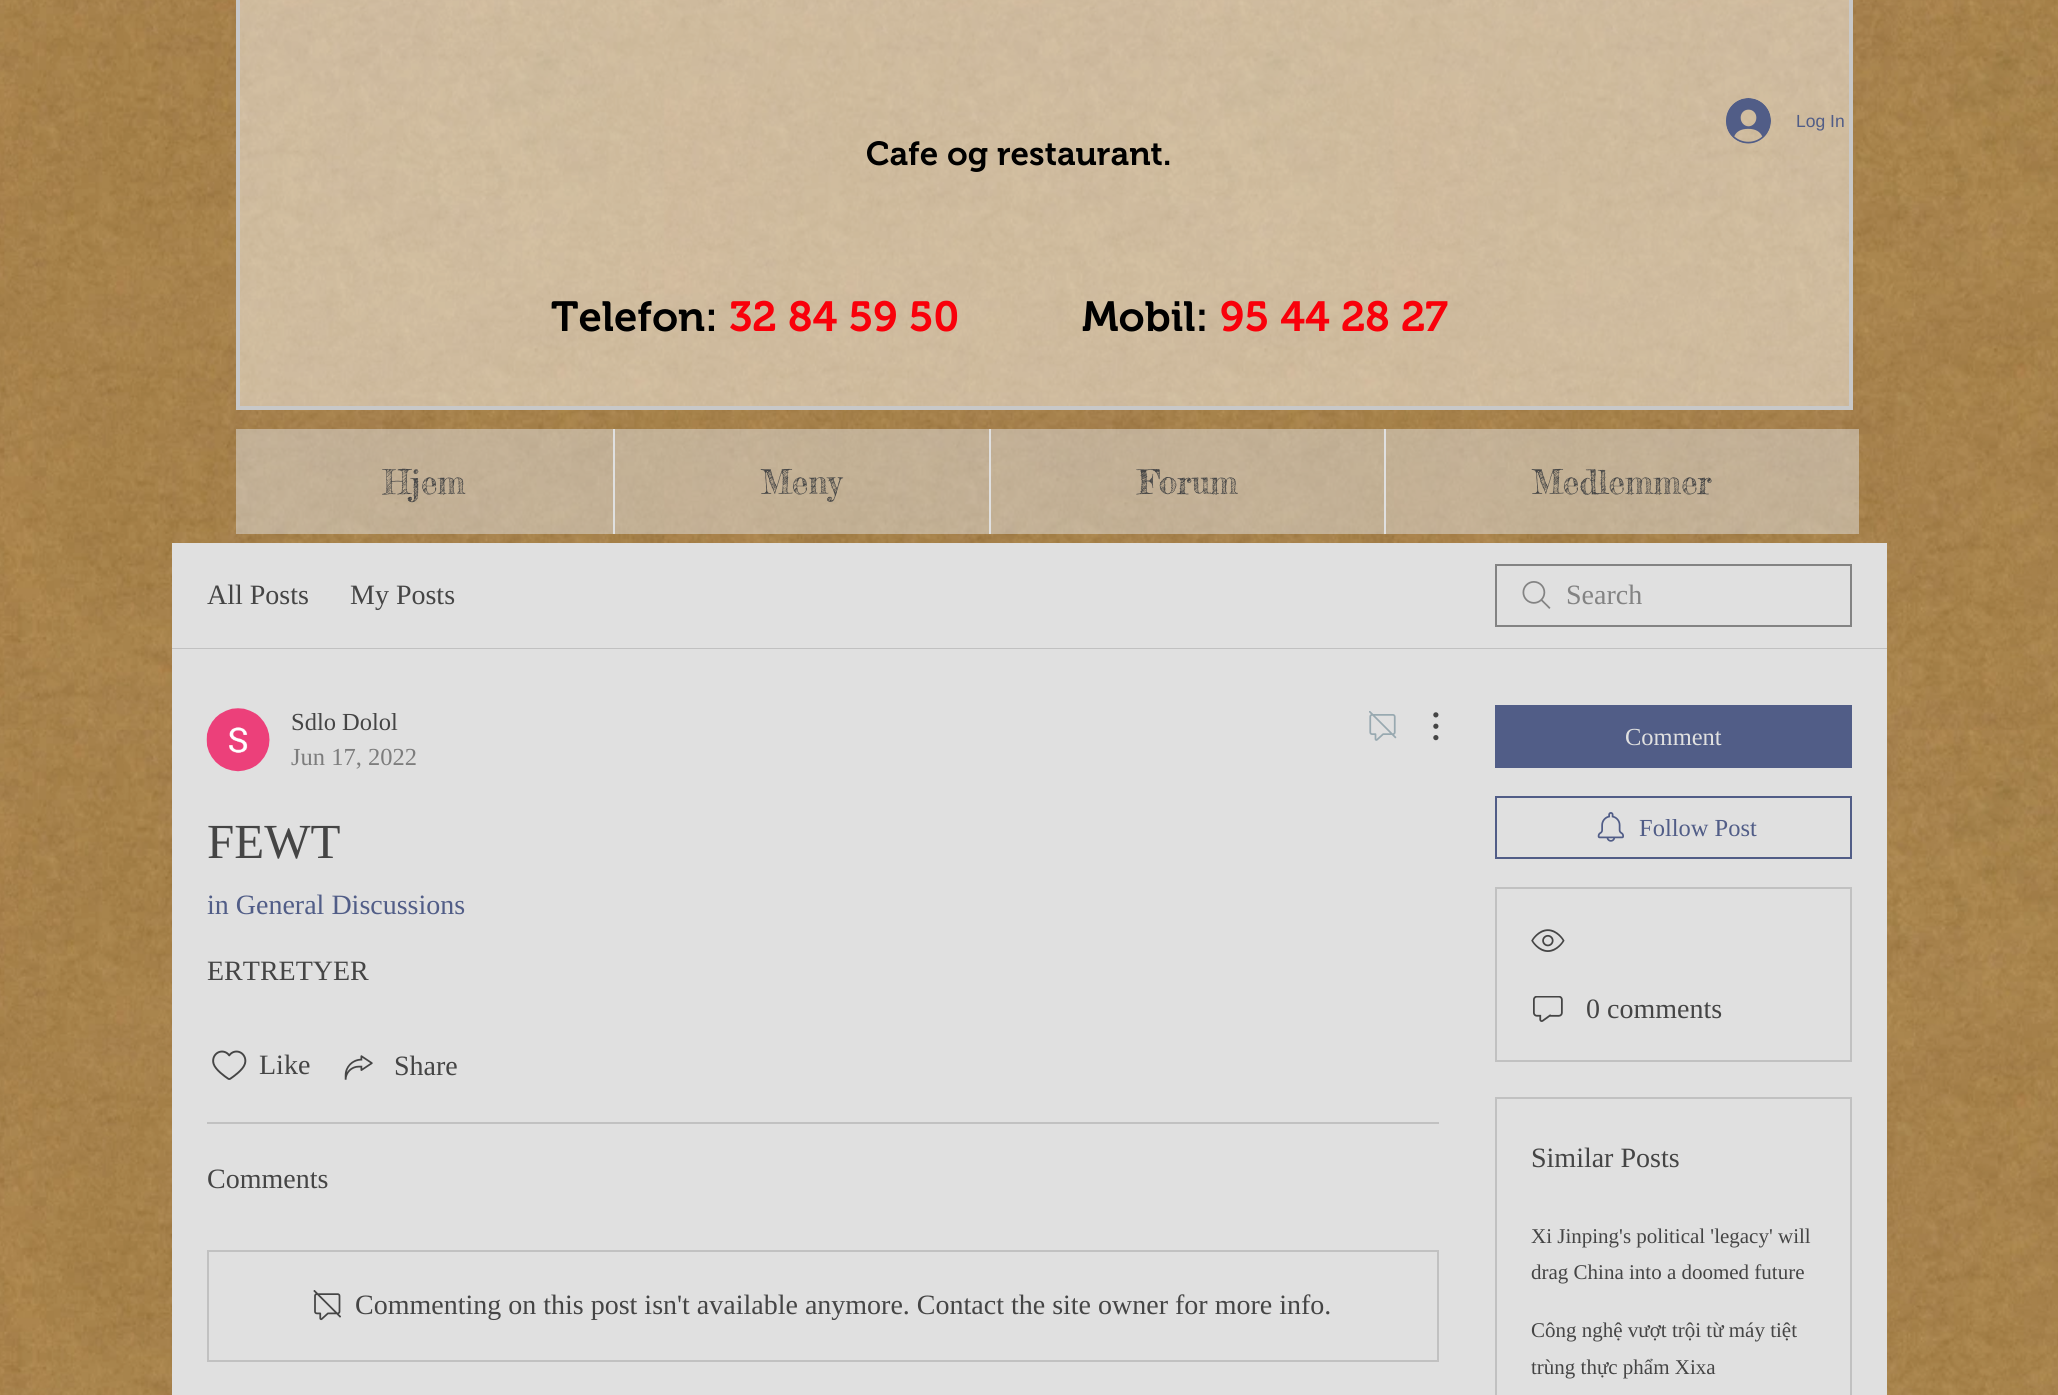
#include <cairo/cairo.h>
#include <math.h>
#include <stddef.h>


static void draw_image(cairo_t *cr, const char *path, double x, double y, double w, double h) {
  cairo_surface_t *image = cairo_image_surface_create_from_png(path);
  cairo_save(cr);
  cairo_set_source_surface(cr, image, x, y);
  cairo_rectangle(cr, x, y, w, h);
  cairo_fill(cr);
  cairo_restore(cr);
  cairo_surface_destroy(image);
}

static void draw(cairo_t *cr) {
  cairo_set_source_rgb(cr, 1, 1, 1);
  cairo_paint(cr);
  draw_image(cr, "images/1.png", 0, 0, 2058, 1395);
  cairo_set_source_rgba(cr, 1, 1, 1, 0.46);
  cairo_rectangle(cr, 238, -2, 1613, 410);
  cairo_fill_preserve(cr);
  cairo_set_source_rgb(cr, 200 / 255.0, 200 / 255.0, 200 / 255.0);
  cairo_set_line_width(cr, 4);
  cairo_stroke(cr);
  draw_image(cr, "images/2.png", 1726, 98, 45, 46);
  cairo_set_source_rgba(cr, 224 / 255.0, 224 / 255.0, 224 / 255.0, 0.5);
  cairo_rectangle(cr, 236, 429, 1623, 105);
  cairo_fill(cr);
  cairo_set_source_rgb(cr, 224 / 255.0, 224 / 255.0, 224 / 255.0);
  cairo_rectangle(cr, 613, 429, 2, 105);
  cairo_fill(cr);
  cairo_rectangle(cr, 989, 429, 2, 105);
  cairo_fill(cr);
  cairo_rectangle(cr, 1384, 429, 2, 105);
  cairo_fill(cr);
  cairo_rectangle(cr, 172, 543, 1715, 105);
  cairo_fill(cr);
  cairo_set_source_rgb(cr, 193 / 255.0, 193 / 255.0, 193 / 255.0);
  cairo_rectangle(cr, 172, 648, 1715, 1);
  cairo_fill(cr);
  draw_image(cr, "images/3.png", 1522, 581, 29, 28);
  cairo_rectangle(cr, 1496, 565, 355, 61);
  cairo_set_source_rgb(cr, 131 / 255.0, 131 / 255.0, 131 / 255.0);
  cairo_set_line_width(cr, 2);
  cairo_stroke(cr);
  cairo_set_source_rgb(cr, 224 / 255.0, 224 / 255.0, 224 / 255.0);
  cairo_rectangle(cr, 172, 649, 1715, 746);
  cairo_fill(cr);
  draw_image(cr, "images/4.png", 206, 708, 64, 64);
  draw_image(cr, "images/5.png", 1369, 711, 28, 30);
  draw_image(cr, "images/6.png", 1433, 712, 6, 29);
  draw_image(cr, "images/7.png", 212, 1050, 35, 30);
  draw_image(cr, "images/8.png", 344, 1055, 29, 25);
  cairo_set_source_rgb(cr, 193 / 255.0, 193 / 255.0, 193 / 255.0);
  cairo_rectangle(cr, 207, 1122, 1232, 2);
  cairo_fill(cr);
  cairo_rectangle(cr, 208, 1251, 1230, 110);
  cairo_stroke(cr);
  draw_image(cr, "images/9.png", 313, 1290, 28, 31);
  cairo_set_source_rgb(cr, 81 / 255.0, 93 / 255.0, 135 / 255.0);
  cairo_rectangle(cr, 1495, 705, 357, 63);
  cairo_fill(cr);
  cairo_rectangle(cr, 1496, 797, 355, 61);
  cairo_stroke(cr);
  draw_image(cr, "images/10.png", 1597, 812, 27, 30);
  cairo_rectangle(cr, 1496, 888, 355, 173);
  cairo_set_source_rgb(cr, 193 / 255.0, 193 / 255.0, 193 / 255.0);
  cairo_stroke(cr);
  draw_image(cr, "images/11.png", 1531, 929, 34, 23);
  draw_image(cr, "images/12.png", 1533, 996, 30, 26);
  cairo_rectangle(cr, 1496, 1098, 355, 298);
  cairo_stroke(cr);
  cairo_select_font_face(cr, "Liberation Sans", CAIRO_FONT_SLANT_NORMAL, CAIRO_FONT_WEIGHT_NORMAL);
  cairo_set_font_size(cr, 17.5);
  cairo_set_source_rgb(cr, 81 / 255.0, 93 / 255.0, 135 / 255.0);
  cairo_move_to(cr, 1796, 127);
  cairo_show_text(cr, "Log In");
  cairo_select_font_face(cr, "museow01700 SemiBold", CAIRO_FONT_SLANT_NORMAL, CAIRO_FONT_WEIGHT_NORMAL);
  cairo_set_font_size(cr, 33.25);
  cairo_set_source_rgb(cr, 0, 0, 0);
  cairo_move_to(cr, 866, 165);
  cairo_show_text(cr, "Cafe og restaurant.");
  cairo_set_font_size(cr, 42);
  cairo_move_to(cr, 551, 331);
  cairo_show_text(cr, "Telefon:");
  cairo_set_source_rgb(cr, 249 / 255.0, 0, 10 / 255.0);
  cairo_move_to(cr, 729, 331);
  cairo_show_text(cr, "32 84 59 50");
  cairo_set_source_rgb(cr, 0, 0, 0);
  cairo_move_to(cr, 1082, 331);
  cairo_show_text(cr, "Mobil:");
  cairo_set_source_rgb(cr, 249 / 255.0, 0, 10 / 255.0);
  cairo_move_to(cr, 1220, 331);
  cairo_show_text(cr, "95 44 28 27");
  cairo_select_font_face(cr, "Fredericka the Great", CAIRO_FONT_SLANT_NORMAL, CAIRO_FONT_WEIGHT_NORMAL);
  cairo_set_font_size(cr, 33.25);
  cairo_set_source_rgb(cr, 69 / 255.0, 69 / 255.0, 69 / 255.0);
  cairo_move_to(cr, 383, 494);
  cairo_show_text(cr, "Hjem");
  cairo_move_to(cr, 761, 494);
  cairo_show_text(cr, "Meny");
  cairo_move_to(cr, 1138, 494);
  cairo_show_text(cr, "Forum");
  cairo_move_to(cr, 1532, 494);
  cairo_show_text(cr, "Medlemmer");
  cairo_select_font_face(cr, "Liberation Serif", CAIRO_FONT_SLANT_NORMAL, CAIRO_FONT_WEIGHT_NORMAL);
  cairo_set_font_size(cr, 28);
  cairo_move_to(cr, 207, 604);
  cairo_show_text(cr, "All Posts");
  cairo_move_to(cr, 350, 604);
  cairo_show_text(cr, "My Posts");
  cairo_set_source_rgb(cr, 131 / 255.0, 131 / 255.0, 131 / 255.0);
  cairo_move_to(cr, 1566, 604);
  cairo_show_text(cr, "Search");
  cairo_set_font_size(cr, 24.5);
  cairo_set_source_rgb(cr, 69 / 255.0, 69 / 255.0, 69 / 255.0);
  cairo_move_to(cr, 291, 730);
  cairo_show_text(cr, "Sdlo Dolol");
  cairo_set_source_rgb(cr, 125 / 255.0, 125 / 255.0, 125 / 255.0);
  cairo_move_to(cr, 291, 765);
  cairo_show_text(cr, "Jun 17, 2022");
  cairo_set_font_size(cr, 49);
  cairo_set_source_rgb(cr, 69 / 255.0, 69 / 255.0, 69 / 255.0);
  cairo_move_to(cr, 207, 858);
  cairo_show_text(cr, "FEWT");
  cairo_set_font_size(cr, 28);
  cairo_set_source_rgb(cr, 81 / 255.0, 93 / 255.0, 135 / 255.0);
  cairo_move_to(cr, 207, 914);
  cairo_show_text(cr, "in General Discussions");
  cairo_set_source_rgb(cr, 69 / 255.0, 69 / 255.0, 69 / 255.0);
  cairo_move_to(cr, 207, 980);
  cairo_show_text(cr, "ERTRETYER");
  cairo_move_to(cr, 259, 1074);
  cairo_show_text(cr, "Like");
  cairo_move_to(cr, 394, 1075);
  cairo_show_text(cr, "Share");
  cairo_move_to(cr, 207, 1188);
  cairo_show_text(cr, "Comments");
  cairo_move_to(cr, 355, 1314);
  cairo_show_text(cr, "Commenting on this post isn't available anymore. Contact the site owner for more info.");
  cairo_set_font_size(cr, 24.5);
  cairo_set_source_rgb(cr, 224 / 255.0, 224 / 255.0, 224 / 255.0);
  cairo_move_to(cr, 1625, 745);
  cairo_show_text(cr, "Comment");
  cairo_set_source_rgb(cr, 81 / 255.0, 93 / 255.0, 135 / 255.0);
  cairo_move_to(cr, 1639, 836);
  cairo_show_text(cr, "Follow Post");
  cairo_set_font_size(cr, 28);
  cairo_set_source_rgb(cr, 69 / 255.0, 69 / 255.0, 69 / 255.0);
  cairo_move_to(cr, 1586, 1018);
  cairo_show_text(cr, "0 comments");
  cairo_move_to(cr, 1531, 1167);
  cairo_show_text(cr, "Similar Posts");
  cairo_set_font_size(cr, 21);
  cairo_move_to(cr, 1531, 1243);
  cairo_show_text(cr, "Xi Jinping's political 'legacy' will");
  cairo_move_to(cr, 1531, 1279);
  cairo_show_text(cr, "drag China into a doomed future");
  cairo_move_to(cr, 1531, 1337);
  cairo_show_text(cr, "Công nghệ vượt trội từ máy tiệt");
  cairo_move_to(cr, 1531, 1374);
  cairo_show_text(cr, "trùng thực phẩm Xixa");
}

int main(void) {
  cairo_surface_t *surface = cairo_image_surface_create(CAIRO_FORMAT_RGB24, 2058, 1395);
  cairo_t *cr = cairo_create(surface);
  cairo_font_options_t *options = cairo_font_options_create();
  cairo_font_options_set_hint_metrics(options, CAIRO_HINT_METRICS_OFF);
  cairo_font_options_set_hint_style(options, CAIRO_HINT_STYLE_NONE);
  cairo_set_font_options(cr, options);
  cairo_set_miter_limit(cr, 4);
  draw(cr);
  cairo_surface_write_to_png(surface, "out.png");
  cairo_font_options_destroy(options);
  cairo_destroy(cr);
  cairo_surface_destroy(surface);
  return 0;
}
